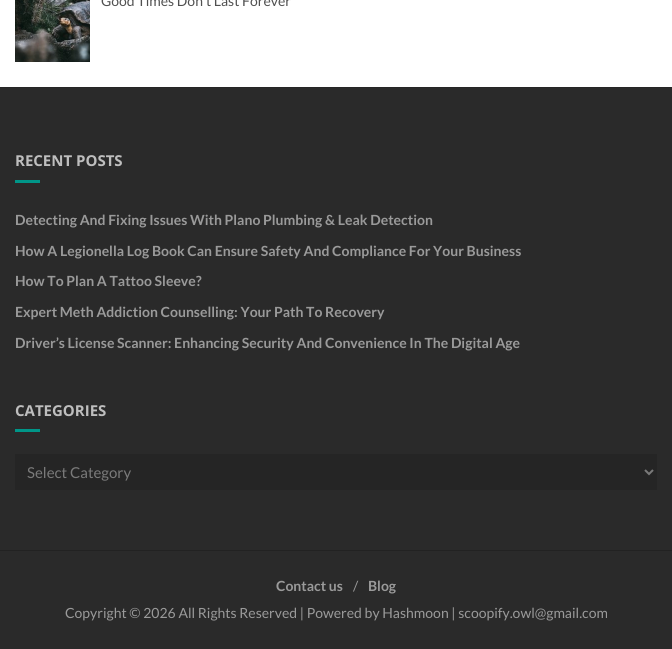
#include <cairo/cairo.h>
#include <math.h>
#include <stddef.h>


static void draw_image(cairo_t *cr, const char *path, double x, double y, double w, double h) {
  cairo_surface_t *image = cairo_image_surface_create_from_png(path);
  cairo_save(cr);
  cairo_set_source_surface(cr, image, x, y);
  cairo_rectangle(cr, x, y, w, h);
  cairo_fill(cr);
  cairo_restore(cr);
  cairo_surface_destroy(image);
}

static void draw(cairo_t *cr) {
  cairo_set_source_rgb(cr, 1, 1, 1);
  cairo_paint(cr);
  draw_image(cr, "images/1.png", 15, 0, 75, 62);
  cairo_set_source_rgb(cr, 42 / 255.0, 42 / 255.0, 42 / 255.0);
  cairo_rectangle(cr, 0, 88, 672, 561);
  cairo_fill(cr);
  cairo_set_source_rgb(cr, 38 / 255.0, 38 / 255.0, 38 / 255.0);
  cairo_rectangle(cr, 0, 87, 672, 1);
  cairo_fill(cr);
  cairo_set_source_rgb(cr, 0, 150 / 255.0, 136 / 255.0);
  cairo_rectangle(cr, 15, 180, 25, 3);
  cairo_fill(cr);
  cairo_rectangle(cr, 15, 429, 25, 3);
  cairo_fill(cr);
  cairo_set_source_rgb(cr, 37 / 255.0, 37 / 255.0, 37 / 255.0);
  cairo_rectangle(cr, 15, 454, 642, 36);
  cairo_fill(cr);
  cairo_new_path(cr);
  cairo_move_to(cr, 645, 470);
  cairo_line_to(cr, 649, 474);
  cairo_line_to(cr, 653, 470);
  cairo_set_source_rgb(cr, 122 / 255.0, 122 / 255.0, 122 / 255.0);
  cairo_stroke(cr);
  cairo_set_source_rgb(cr, 34 / 255.0, 34 / 255.0, 34 / 255.0);
  cairo_rectangle(cr, 0, 550, 672, 1);
  cairo_fill(cr);
  cairo_select_font_face(cr, "Lato", CAIRO_FONT_SLANT_NORMAL, CAIRO_FONT_WEIGHT_NORMAL);
  cairo_set_font_size(cr, 14);
  cairo_set_source_rgb(cr, 80 / 255.0, 80 / 255.0, 80 / 255.0);
  cairo_move_to(cr, 101, 6);
  cairo_show_text(cr, "Good Times Don’t Last Forever");
  cairo_select_font_face(cr, "Open Sans", CAIRO_FONT_SLANT_NORMAL, CAIRO_FONT_WEIGHT_BOLD);
  cairo_set_font_size(cr, 15);
  cairo_set_source_rgb(cr, 190 / 255.0, 190 / 255.0, 190 / 255.0);
  cairo_move_to(cr, 15, 166);
  cairo_show_text(cr, "RECENT POSTS");
  cairo_select_font_face(cr, "Lato", CAIRO_FONT_SLANT_NORMAL, CAIRO_FONT_WEIGHT_BOLD);
  cairo_set_font_size(cr, 14);
  cairo_set_source_rgb(cr, 154 / 255.0, 154 / 255.0, 154 / 255.0);
  cairo_move_to(cr, 15, 225);
  cairo_show_text(cr, "Detecting And Fixing Issues With Plano Plumbing & Leak Detection");
  cairo_move_to(cr, 15, 256);
  cairo_show_text(cr, "How A Legionella Log Book Can Ensure Safety And Compliance For Your Business");
  cairo_move_to(cr, 15, 286);
  cairo_show_text(cr, "How To Plan A Tattoo Sleeve?");
  cairo_move_to(cr, 15, 317);
  cairo_show_text(cr, "Expert Meth Addiction Counselling: Your Path To Recovery");
  cairo_move_to(cr, 15, 348);
  cairo_show_text(cr, "Driver’s License Scanner: Enhancing Security And Convenience In The Digital Age");
  cairo_select_font_face(cr, "Open Sans", CAIRO_FONT_SLANT_NORMAL, CAIRO_FONT_WEIGHT_BOLD);
  cairo_set_font_size(cr, 15);
  cairo_set_source_rgb(cr, 190 / 255.0, 190 / 255.0, 190 / 255.0);
  cairo_move_to(cr, 15, 416);
  cairo_show_text(cr, "CATEGORIES");
  cairo_select_font_face(cr, "Lato", CAIRO_FONT_SLANT_NORMAL, CAIRO_FONT_WEIGHT_NORMAL);
  cairo_set_source_rgb(cr, 122 / 255.0, 122 / 255.0, 122 / 255.0);
  cairo_move_to(cr, 27, 478);
  cairo_show_text(cr, "Select Category");
  cairo_select_font_face(cr, "Lato", CAIRO_FONT_SLANT_NORMAL, CAIRO_FONT_WEIGHT_BOLD);
  cairo_set_font_size(cr, 14);
  cairo_set_source_rgb(cr, 154 / 255.0, 154 / 255.0, 154 / 255.0);
  cairo_move_to(cr, 276, 591);
  cairo_show_text(cr, "Contact us");
  cairo_select_font_face(cr, "Lato", CAIRO_FONT_SLANT_NORMAL, CAIRO_FONT_WEIGHT_NORMAL);
  cairo_move_to(cr, 353, 591);
  cairo_show_text(cr, "/");
  cairo_select_font_face(cr, "Lato", CAIRO_FONT_SLANT_NORMAL, CAIRO_FONT_WEIGHT_BOLD);
  cairo_move_to(cr, 368, 591);
  cairo_show_text(cr, "Blog");
  cairo_select_font_face(cr, "Lato", CAIRO_FONT_SLANT_NORMAL, CAIRO_FONT_WEIGHT_NORMAL);
  cairo_move_to(cr, 65, 618);
  cairo_show_text(cr, "Copyright © 2026 All Rights Reserved | Powered by Hashmoon | scoopify.owl@gmail.com");
}

int main(void) {
  cairo_surface_t *surface = cairo_image_surface_create(CAIRO_FORMAT_RGB24, 672, 649);
  cairo_t *cr = cairo_create(surface);
  cairo_font_options_t *options = cairo_font_options_create();
  cairo_font_options_set_hint_metrics(options, CAIRO_HINT_METRICS_OFF);
  cairo_font_options_set_hint_style(options, CAIRO_HINT_STYLE_NONE);
  cairo_set_font_options(cr, options);
  cairo_set_miter_limit(cr, 4);
  draw(cr);
  cairo_surface_write_to_png(surface, "out.png");
  cairo_font_options_destroy(options);
  cairo_destroy(cr);
  cairo_surface_destroy(surface);
  return 0;
}
